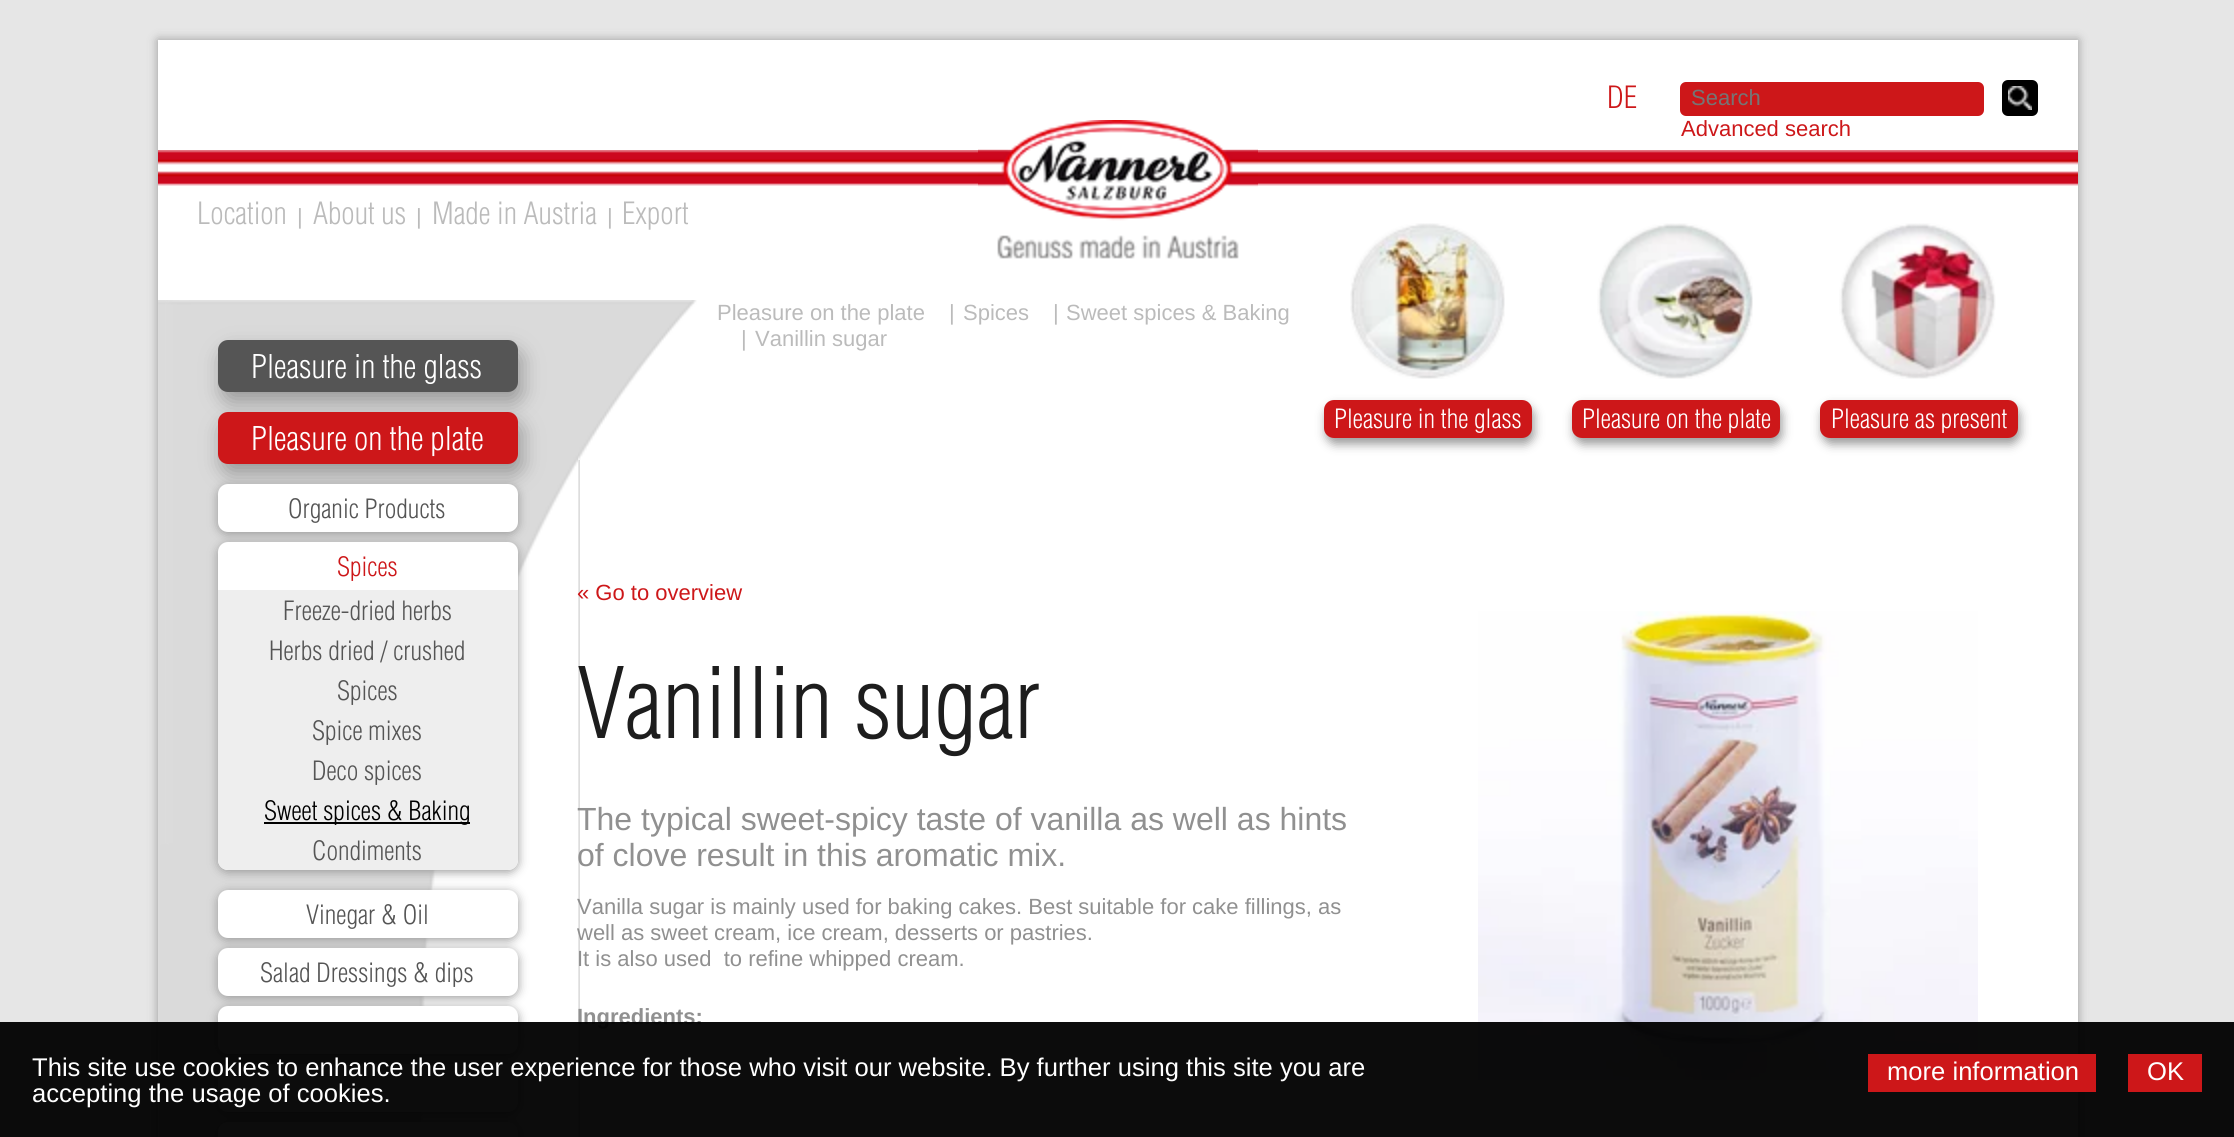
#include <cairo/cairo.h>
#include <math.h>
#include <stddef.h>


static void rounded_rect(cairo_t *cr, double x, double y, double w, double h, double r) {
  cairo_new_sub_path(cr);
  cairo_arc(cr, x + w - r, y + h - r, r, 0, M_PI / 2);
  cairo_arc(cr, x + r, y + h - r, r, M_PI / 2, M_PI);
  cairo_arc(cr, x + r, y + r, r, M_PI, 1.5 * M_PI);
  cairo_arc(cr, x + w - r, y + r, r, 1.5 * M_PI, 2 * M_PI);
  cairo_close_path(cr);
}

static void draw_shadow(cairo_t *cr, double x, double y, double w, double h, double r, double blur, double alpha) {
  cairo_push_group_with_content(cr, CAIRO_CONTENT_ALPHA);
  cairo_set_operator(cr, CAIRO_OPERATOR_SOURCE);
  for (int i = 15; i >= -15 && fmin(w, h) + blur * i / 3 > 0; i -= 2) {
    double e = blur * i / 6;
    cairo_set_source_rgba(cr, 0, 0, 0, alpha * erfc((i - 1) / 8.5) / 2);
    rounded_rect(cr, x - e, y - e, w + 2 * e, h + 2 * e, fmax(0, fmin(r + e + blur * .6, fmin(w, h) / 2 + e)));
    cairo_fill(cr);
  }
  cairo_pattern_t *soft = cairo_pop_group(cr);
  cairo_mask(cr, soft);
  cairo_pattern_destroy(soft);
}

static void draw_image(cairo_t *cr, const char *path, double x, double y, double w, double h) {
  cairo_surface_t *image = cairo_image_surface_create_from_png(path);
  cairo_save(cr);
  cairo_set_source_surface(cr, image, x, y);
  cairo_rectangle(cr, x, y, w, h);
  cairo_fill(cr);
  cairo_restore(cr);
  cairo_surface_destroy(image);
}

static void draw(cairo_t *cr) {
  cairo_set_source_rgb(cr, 230 / 255.0, 230 / 255.0, 230 / 255.0);
  cairo_paint(cr);
  cairo_set_source_rgb(cr, 153 / 255.0, 153 / 255.0, 153 / 255.0);
  draw_shadow(cr, 158, 40, 1920, 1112, 0, 5, 1);
  cairo_set_source_rgb(cr, 1, 1, 1);
  cairo_rectangle(cr, 158, 40, 1920, 1097);
  cairo_fill(cr);
  draw_image(cr, "images/1.png", 158, 300, 422, 837);
  draw_image(cr, "images/2.png", 158, 150, 1920, 36);
  cairo_set_source_rgb(cr, 205 / 255.0, 23 / 255.0, 25 / 255.0);
  rounded_rect(cr, 1680, 82, 304, 34, 6);
  cairo_fill(cr);
  cairo_set_source_rgb(cr, 0, 0, 0);
  rounded_rect(cr, 2002, 80, 36, 36, 6);
  cairo_fill(cr);
  draw_image(cr, "images/3.png", 2008, 86, 24, 24);
  draw_image(cr, "images/4.png", 978, 120, 280, 139);
  draw_image(cr, "images/5.png", 158, 300, 420, 740);
  cairo_set_source_rgb(cr, 153 / 255.0, 153 / 255.0, 153 / 255.0);
  draw_shadow(cr, 222, 350, 300, 52, 10, 10, 1);
  cairo_set_source_rgb(cr, 85 / 255.0, 85 / 255.0, 85 / 255.0);
  rounded_rect(cr, 218, 340, 300, 52, 10);
  cairo_fill(cr);
  cairo_set_source_rgb(cr, 153 / 255.0, 153 / 255.0, 153 / 255.0);
  draw_shadow(cr, 222, 422, 300, 52, 10, 10, 1);
  cairo_set_source_rgb(cr, 205 / 255.0, 23 / 255.0, 25 / 255.0);
  rounded_rect(cr, 218, 412, 300, 52, 10);
  cairo_fill(cr);
  cairo_set_source_rgb(cr, 153 / 255.0, 153 / 255.0, 153 / 255.0);
  draw_shadow(cr, 218, 486, 300, 48, 10, 5, 1);
  cairo_set_source_rgb(cr, 1, 1, 1);
  rounded_rect(cr, 218, 484, 300, 48, 10);
  cairo_fill(cr);
  cairo_set_source_rgb(cr, 153 / 255.0, 153 / 255.0, 153 / 255.0);
  draw_shadow(cr, 218, 544, 300, 328, 10, 5, 1);
  cairo_set_source_rgb(cr, 1, 1, 1);
  rounded_rect(cr, 218, 542, 300, 328, 10);
  cairo_fill(cr);
  cairo_set_source_rgb(cr, 238 / 255.0, 238 / 255.0, 238 / 255.0);
  cairo_new_path(cr);
  cairo_move_to(cr, 218, 590);
  cairo_line_to(cr, 518, 590);
  cairo_line_to(cr, 518, 860);
  cairo_curve_to(cr, 518, 865.5, 513.5, 870, 508, 870);
  cairo_line_to(cr, 228, 870);
  cairo_curve_to(cr, 222.5, 870, 218, 865.5, 218, 860);
  cairo_close_path(cr);
  cairo_fill(cr);
  cairo_set_source_rgb(cr, 0, 0, 0);
  cairo_rectangle(cr, 264, 822, 206, 2);
  cairo_fill(cr);
  cairo_set_source_rgb(cr, 153 / 255.0, 153 / 255.0, 153 / 255.0);
  draw_shadow(cr, 218, 892, 300, 48, 10, 5, 1);
  cairo_set_source_rgb(cr, 1, 1, 1);
  rounded_rect(cr, 218, 890, 300, 48, 10);
  cairo_fill(cr);
  cairo_set_source_rgb(cr, 153 / 255.0, 153 / 255.0, 153 / 255.0);
  draw_shadow(cr, 218, 950, 300, 48, 10, 5, 1);
  cairo_set_source_rgb(cr, 1, 1, 1);
  rounded_rect(cr, 218, 948, 300, 48, 10);
  cairo_fill(cr);
  cairo_set_source_rgb(cr, 153 / 255.0, 153 / 255.0, 153 / 255.0);
  draw_shadow(cr, 218, 1008, 300, 48, 10, 5, 1);
  cairo_set_source_rgb(cr, 1, 1, 1);
  rounded_rect(cr, 218, 1006, 300, 48, 10);
  cairo_fill(cr);
  cairo_set_source_rgb(cr, 153 / 255.0, 153 / 255.0, 153 / 255.0);
  draw_shadow(cr, 218, 1066, 300, 48, 10, 5, 1);
  cairo_set_source_rgb(cr, 1, 1, 1);
  rounded_rect(cr, 218, 1064, 300, 48, 10);
  cairo_fill(cr);
  cairo_set_source_rgb(cr, 153 / 255.0, 153 / 255.0, 153 / 255.0);
  draw_shadow(cr, 218, 1124, 300, 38, 10, 5, 1);
  cairo_set_source_rgb(cr, 1, 1, 1);
  rounded_rect(cr, 218, 1122, 300, 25, 10);
  cairo_fill(cr);
  draw_image(cr, "images/6.png", 578, 300, 119, 160);
  draw_image(cr, "images/7.png", 1478, 611, 500, 469);
  draw_image(cr, "images/8.png", 1350, 223, 155, 156);
  cairo_set_source_rgb(cr, 153 / 255.0, 153 / 255.0, 153 / 255.0);
  draw_shadow(cr, 1326, 406, 208, 38, 10, 5, 1);
  cairo_set_source_rgb(cr, 205 / 255.0, 23 / 255.0, 25 / 255.0);
  rounded_rect(cr, 1324, 400, 208, 38, 10);
  cairo_fill(cr);
  draw_image(cr, "images/9.png", 1597, 223, 156, 156);
  cairo_set_source_rgb(cr, 153 / 255.0, 153 / 255.0, 153 / 255.0);
  draw_shadow(cr, 1574, 406, 208, 38, 10, 5, 1);
  cairo_set_source_rgb(cr, 205 / 255.0, 23 / 255.0, 25 / 255.0);
  rounded_rect(cr, 1572, 400, 208, 38, 10);
  cairo_fill(cr);
  draw_image(cr, "images/10.png", 1839, 223, 157, 156);
  cairo_set_source_rgb(cr, 153 / 255.0, 153 / 255.0, 153 / 255.0);
  draw_shadow(cr, 1822, 406, 198, 38, 10, 5, 1);
  cairo_set_source_rgb(cr, 205 / 255.0, 23 / 255.0, 25 / 255.0);
  rounded_rect(cr, 1820, 400, 198, 38, 10);
  cairo_fill(cr);
  cairo_select_font_face(cr, "Helvetica Light", CAIRO_FONT_SLANT_NORMAL, CAIRO_FONT_WEIGHT_NORMAL);
  cairo_set_font_size(cr, 30);
  cairo_move_to(cr, 1607, 108);
  cairo_show_text(cr, "DE");
  cairo_select_font_face(cr, "Liberation Sans", CAIRO_FONT_SLANT_NORMAL, CAIRO_FONT_WEIGHT_NORMAL);
  cairo_set_font_size(cr, 22);
  cairo_set_source_rgb(cr, 117 / 255.0, 117 / 255.0, 117 / 255.0);
  cairo_move_to(cr, 1691, 105);
  cairo_show_text(cr, "Search");
  cairo_set_source_rgb(cr, 205 / 255.0, 23 / 255.0, 25 / 255.0);
  cairo_move_to(cr, 1681, 136);
  cairo_show_text(cr, "Advanced search");
  cairo_select_font_face(cr, "Helvetica Light", CAIRO_FONT_SLANT_NORMAL, CAIRO_FONT_WEIGHT_NORMAL);
  cairo_set_font_size(cr, 30);
  cairo_set_source_rgb(cr, 187 / 255.0, 187 / 255.0, 187 / 255.0);
  cairo_move_to(cr, 197, 224);
  cairo_show_text(cr, "Location");
  cairo_select_font_face(cr, "Liberation Sans", CAIRO_FONT_SLANT_NORMAL, CAIRO_FONT_WEIGHT_NORMAL);
  cairo_set_font_size(cr, 22);
  cairo_move_to(cr, 297, 224);
  cairo_show_text(cr, "|");
  cairo_select_font_face(cr, "Helvetica Light", CAIRO_FONT_SLANT_NORMAL, CAIRO_FONT_WEIGHT_NORMAL);
  cairo_set_font_size(cr, 30);
  cairo_move_to(cr, 313, 224);
  cairo_show_text(cr, "About us");
  cairo_select_font_face(cr, "Liberation Sans", CAIRO_FONT_SLANT_NORMAL, CAIRO_FONT_WEIGHT_NORMAL);
  cairo_set_font_size(cr, 22);
  cairo_move_to(cr, 416, 224);
  cairo_show_text(cr, "|");
  cairo_select_font_face(cr, "Helvetica Light", CAIRO_FONT_SLANT_NORMAL, CAIRO_FONT_WEIGHT_NORMAL);
  cairo_set_font_size(cr, 30);
  cairo_move_to(cr, 432, 224);
  cairo_show_text(cr, "Made in Austria");
  cairo_select_font_face(cr, "Liberation Sans", CAIRO_FONT_SLANT_NORMAL, CAIRO_FONT_WEIGHT_NORMAL);
  cairo_set_font_size(cr, 22);
  cairo_move_to(cr, 607, 224);
  cairo_show_text(cr, "|");
  cairo_select_font_face(cr, "Helvetica Light", CAIRO_FONT_SLANT_NORMAL, CAIRO_FONT_WEIGHT_NORMAL);
  cairo_set_font_size(cr, 30);
  cairo_move_to(cr, 622, 224);
  cairo_show_text(cr, "Export");
  cairo_set_font_size(cr, 32);
  cairo_set_source_rgb(cr, 1, 1, 1);
  cairo_move_to(cr, 251, 378);
  cairo_show_text(cr, "Pleasure in the glass");
  cairo_move_to(cr, 251, 450);
  cairo_show_text(cr, "Pleasure on the plate");
  cairo_set_font_size(cr, 26);
  cairo_set_source_rgb(cr, 85 / 255.0, 85 / 255.0, 85 / 255.0);
  cairo_move_to(cr, 288, 518);
  cairo_show_text(cr, "Organic Products");
  cairo_set_source_rgb(cr, 205 / 255.0, 23 / 255.0, 25 / 255.0);
  cairo_move_to(cr, 337, 576);
  cairo_show_text(cr, "Spices");
  cairo_set_source_rgb(cr, 85 / 255.0, 85 / 255.0, 85 / 255.0);
  cairo_move_to(cr, 283, 620);
  cairo_show_text(cr, "Freeze-dried herbs");
  cairo_move_to(cr, 269, 660);
  cairo_show_text(cr, "Herbs dried / crushed");
  cairo_move_to(cr, 337, 700);
  cairo_show_text(cr, "Spices");
  cairo_move_to(cr, 312, 740);
  cairo_show_text(cr, "Spice mixes");
  cairo_move_to(cr, 312, 780);
  cairo_show_text(cr, "Deco spices");
  cairo_set_source_rgb(cr, 0, 0, 0);
  cairo_move_to(cr, 264, 820);
  cairo_show_text(cr, "Sweet spices & Baking");
  cairo_set_source_rgb(cr, 85 / 255.0, 85 / 255.0, 85 / 255.0);
  cairo_move_to(cr, 312, 860);
  cairo_show_text(cr, "Condiments");
  cairo_move_to(cr, 306, 924);
  cairo_show_text(cr, "Vinegar & Oil");
  cairo_move_to(cr, 260, 982);
  cairo_show_text(cr, "Salad Dressings & dips");
  cairo_select_font_face(cr, "Liberation Sans", CAIRO_FONT_SLANT_NORMAL, CAIRO_FONT_WEIGHT_NORMAL);
  cairo_set_font_size(cr, 22);
  cairo_set_source_rgb(cr, 187 / 255.0, 187 / 255.0, 187 / 255.0);
  cairo_move_to(cr, 717, 320);
  cairo_show_text(cr, "Pleasure on the plate");
  cairo_move_to(cr, 949, 320);
  cairo_show_text(cr, "|");
  cairo_move_to(cr, 963, 320);
  cairo_show_text(cr, "Spices");
  cairo_move_to(cr, 1053, 320);
  cairo_show_text(cr, "|");
  cairo_move_to(cr, 1066, 320);
  cairo_show_text(cr, "Sweet spices & Baking");
  cairo_move_to(cr, 741, 346);
  cairo_show_text(cr, "|");
  cairo_move_to(cr, 755, 346);
  cairo_show_text(cr, "Vanillin sugar");
  cairo_set_source_rgb(cr, 205 / 255.0, 23 / 255.0, 25 / 255.0);
  cairo_move_to(cr, 577, 600);
  cairo_show_text(cr, "« Go to overview");
  cairo_select_font_face(cr, "Helvetica Light", CAIRO_FONT_SLANT_NORMAL, CAIRO_FONT_WEIGHT_NORMAL);
  cairo_set_font_size(cr, 96);
  cairo_set_source_rgb(cr, 29 / 255.0, 29 / 255.0, 29 / 255.0);
  cairo_move_to(cr, 577, 738);
  cairo_show_text(cr, "Vanillin sugar");
  cairo_select_font_face(cr, "Liberation Sans", CAIRO_FONT_SLANT_NORMAL, CAIRO_FONT_WEIGHT_NORMAL);
  cairo_set_font_size(cr, 32);
  cairo_set_source_rgb(cr, 144 / 255.0, 144 / 255.0, 144 / 255.0);
  cairo_move_to(cr, 577, 830);
  cairo_show_text(cr, "The typical sweet-spicy taste of vanilla as well as hints");
  cairo_move_to(cr, 577, 866);
  cairo_show_text(cr, "of clove result in this aromatic mix.");
  cairo_set_font_size(cr, 22);
  cairo_move_to(cr, 577, 914);
  cairo_show_text(cr, "Vanilla sugar is mainly used for baking cakes. Best suitable for cake fillings, as");
  cairo_move_to(cr, 577, 940);
  cairo_show_text(cr, "well as sweet cream, ice cream, desserts or pastries.");
  cairo_move_to(cr, 577, 966);
  cairo_show_text(cr, "It is also used  to refine whipped cream.");
  cairo_select_font_face(cr, "Liberation Sans", CAIRO_FONT_SLANT_NORMAL, CAIRO_FONT_WEIGHT_BOLD);
  cairo_move_to(cr, 577, 1024);
  cairo_show_text(cr, "Ingredients:");
  cairo_select_font_face(cr, "Helvetica Light", CAIRO_FONT_SLANT_NORMAL, CAIRO_FONT_WEIGHT_NORMAL);
  cairo_set_font_size(cr, 26);
  cairo_set_source_rgb(cr, 1, 1, 1);
  cairo_move_to(cr, 1334, 428);
  cairo_show_text(cr, "Pleasure in the glass");
  cairo_move_to(cr, 1582, 428);
  cairo_show_text(cr, "Pleasure on the plate");
  cairo_move_to(cr, 1831, 428);
  cairo_show_text(cr, "Pleasure as present");
  cairo_set_source_rgba(cr, 0, 0, 0, 0.95);
  cairo_rectangle(cr, 0, 1022, 2234, 115);
  cairo_fill(cr);
  cairo_select_font_face(cr, "Liberation Sans", CAIRO_FONT_SLANT_NORMAL, CAIRO_FONT_WEIGHT_NORMAL);
  cairo_set_font_size(cr, 25.6);
  cairo_set_source_rgb(cr, 1, 1, 1);
  cairo_move_to(cr, 32, 1076);
  cairo_show_text(cr, "This site use cookies to enhance the user experience for those who visit our website. By further using this site you are");
  cairo_move_to(cr, 32, 1102);
  cairo_show_text(cr, "accepting the usage of cookies.");
  cairo_set_source_rgb(cr, 205 / 255.0, 23 / 255.0, 25 / 255.0);
  cairo_rectangle(cr, 1868, 1054, 228, 38);
  cairo_fill(cr);
  cairo_set_source_rgb(cr, 1, 1, 1);
  cairo_move_to(cr, 1887, 1080);
  cairo_show_text(cr, "more information");
  cairo_set_source_rgb(cr, 205 / 255.0, 23 / 255.0, 25 / 255.0);
  cairo_rectangle(cr, 2128, 1054, 74, 38);
  cairo_fill(cr);
  cairo_set_source_rgb(cr, 1, 1, 1);
  cairo_move_to(cr, 2147, 1080);
  cairo_show_text(cr, "OK");
}

int main(void) {
  cairo_surface_t *surface = cairo_image_surface_create(CAIRO_FORMAT_RGB24, 2234, 1137);
  cairo_t *cr = cairo_create(surface);
  cairo_font_options_t *options = cairo_font_options_create();
  cairo_font_options_set_hint_metrics(options, CAIRO_HINT_METRICS_OFF);
  cairo_font_options_set_hint_style(options, CAIRO_HINT_STYLE_NONE);
  cairo_set_font_options(cr, options);
  cairo_set_miter_limit(cr, 4);
  draw(cr);
  cairo_surface_write_to_png(surface, "out.png");
  cairo_font_options_destroy(options);
  cairo_destroy(cr);
  cairo_surface_destroy(surface);
  return 0;
}
